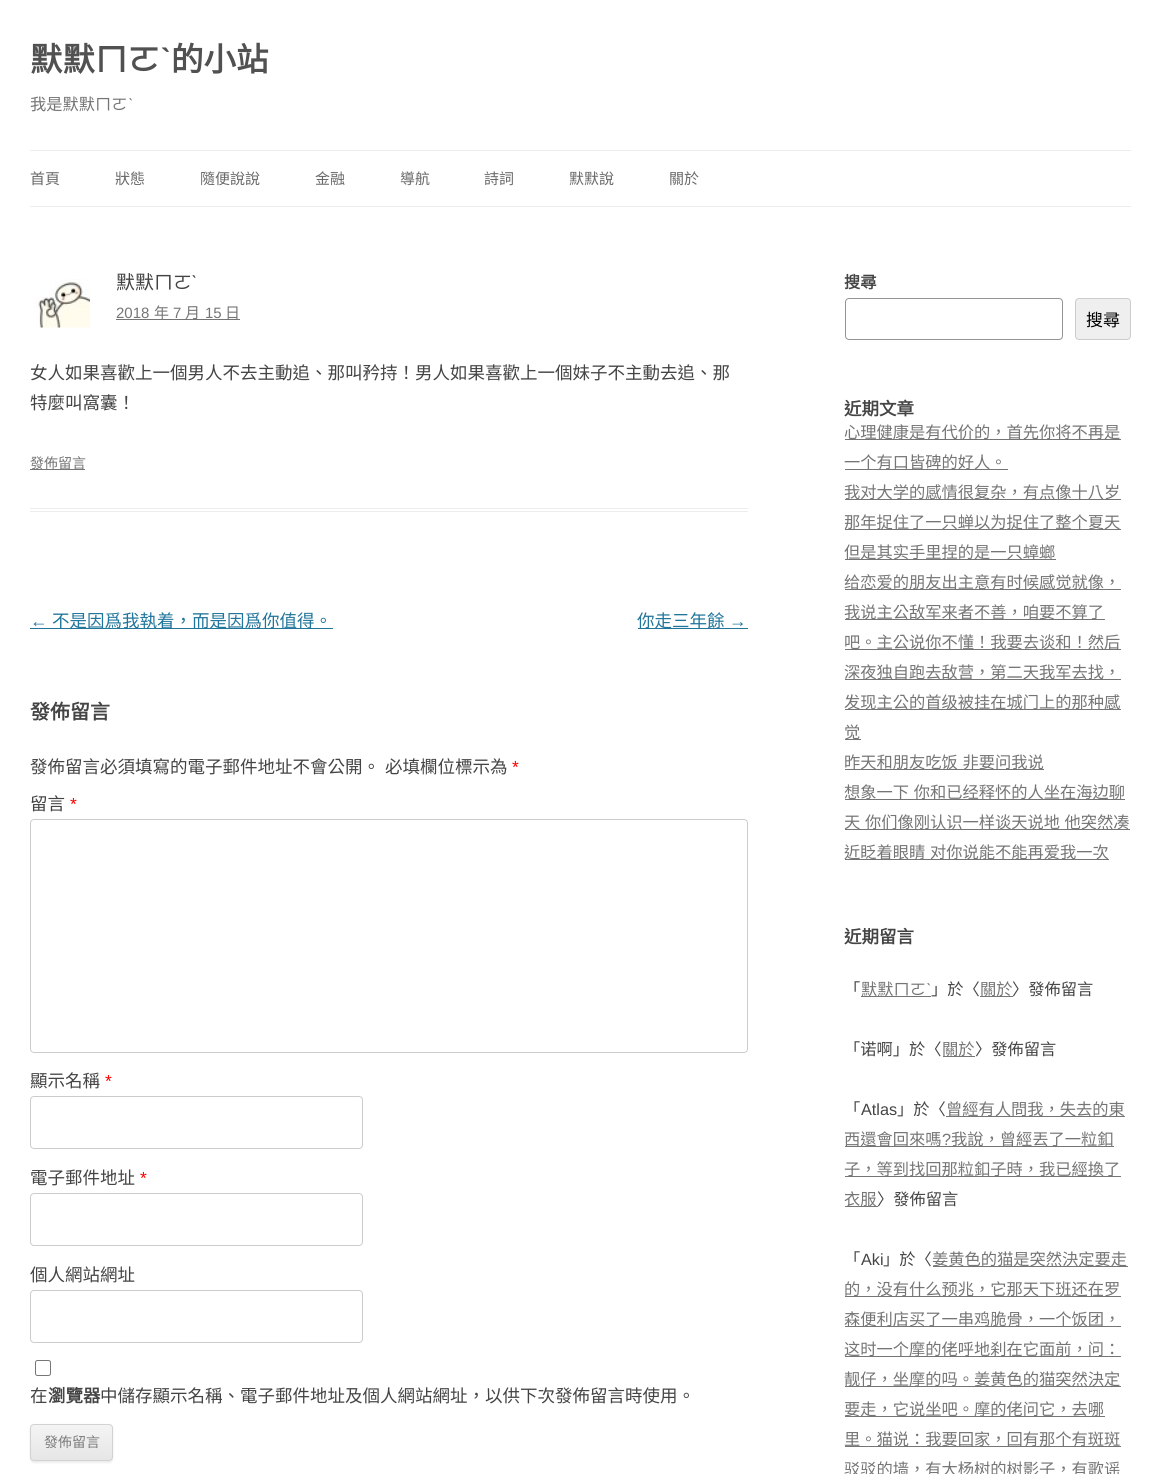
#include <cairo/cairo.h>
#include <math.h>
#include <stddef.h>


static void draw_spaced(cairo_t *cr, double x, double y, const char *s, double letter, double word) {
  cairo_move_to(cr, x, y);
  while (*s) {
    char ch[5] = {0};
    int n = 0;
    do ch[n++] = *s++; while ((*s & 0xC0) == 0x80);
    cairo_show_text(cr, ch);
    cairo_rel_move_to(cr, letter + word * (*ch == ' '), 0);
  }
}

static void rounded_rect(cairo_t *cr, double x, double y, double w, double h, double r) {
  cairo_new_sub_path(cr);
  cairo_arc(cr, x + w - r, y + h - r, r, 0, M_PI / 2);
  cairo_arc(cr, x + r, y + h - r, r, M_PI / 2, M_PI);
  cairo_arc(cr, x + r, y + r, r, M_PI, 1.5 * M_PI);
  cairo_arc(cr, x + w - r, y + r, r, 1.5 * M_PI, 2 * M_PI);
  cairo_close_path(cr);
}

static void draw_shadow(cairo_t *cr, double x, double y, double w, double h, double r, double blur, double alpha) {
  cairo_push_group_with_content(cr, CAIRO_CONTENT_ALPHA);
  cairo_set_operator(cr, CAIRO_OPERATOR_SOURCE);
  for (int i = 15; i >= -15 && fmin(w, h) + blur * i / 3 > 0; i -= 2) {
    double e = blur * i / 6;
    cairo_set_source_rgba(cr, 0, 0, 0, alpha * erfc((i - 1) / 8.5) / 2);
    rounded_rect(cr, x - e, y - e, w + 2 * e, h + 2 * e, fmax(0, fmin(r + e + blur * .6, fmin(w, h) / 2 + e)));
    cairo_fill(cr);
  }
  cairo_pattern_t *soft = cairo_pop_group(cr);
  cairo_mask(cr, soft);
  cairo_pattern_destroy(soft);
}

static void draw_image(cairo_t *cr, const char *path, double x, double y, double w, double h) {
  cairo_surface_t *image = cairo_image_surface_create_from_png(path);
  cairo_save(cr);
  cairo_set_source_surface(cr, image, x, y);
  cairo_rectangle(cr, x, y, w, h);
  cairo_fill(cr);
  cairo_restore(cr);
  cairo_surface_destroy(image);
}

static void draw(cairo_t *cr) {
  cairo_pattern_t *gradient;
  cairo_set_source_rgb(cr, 1, 1, 1);
  cairo_paint(cr);
  cairo_set_source_rgb(cr, 237 / 255.0, 237 / 255.0, 237 / 255.0);
  cairo_rectangle(cr, 30, 150, 1101, 1);
  cairo_fill(cr);
  cairo_rectangle(cr, 30, 206, 1101, 1);
  cairo_fill(cr);
  cairo_rectangle(cr, 30, 508, 718, 1);
  cairo_fill(cr);
  cairo_rectangle(cr, 30, 511, 718, 1);
  cairo_fill(cr);
  draw_image(cr, "images/1.png", 34, 279, 56, 49);
  cairo_set_source_rgb(cr, 117 / 255.0, 117 / 255.0, 117 / 255.0);
  cairo_rectangle(cr, 116, 319, 124, 1);
  cairo_fill(cr);
  cairo_rectangle(cr, 30, 469, 55, 1);
  cairo_fill(cr);
  cairo_set_source_rgb(cr, 33 / 255.0, 117 / 255.0, 155 / 255.0);
  cairo_rectangle(cr, 30, 628, 303, 1);
  cairo_fill(cr);
  cairo_rectangle(cr, 638, 628, 110, 1);
  cairo_fill(cr);
  rounded_rect(cr, 30.5, 819.5, 717, 233, 3.5);
  cairo_set_source_rgb(cr, 204 / 255.0, 204 / 255.0, 204 / 255.0);
  cairo_set_line_width(cr, 1);
  cairo_stroke(cr);
  rounded_rect(cr, 30.5, 1096.5, 332, 52, 3.5);
  cairo_stroke(cr);
  rounded_rect(cr, 30.5, 1193.5, 332, 52, 3.5);
  cairo_stroke(cr);
  rounded_rect(cr, 30.5, 1290.5, 332, 52, 3.5);
  cairo_stroke(cr);
  rounded_rect(cr, 35.5, 1360.5, 15, 15, 2);
  cairo_set_source_rgb(cr, 118 / 255.0, 118 / 255.0, 118 / 255.0);
  cairo_stroke(cr);
  cairo_set_source_rgb(cr, 64 / 255.0, 64 / 255.0, 64 / 255.0);
  draw_shadow(cr, 30, 1425, 83, 38, 4, 1, 0.1);
  cairo_save(cr);
  rounded_rect(cr, 30, 1424, 83, 37, 4);
  cairo_clip(cr);
  gradient = cairo_pattern_create_linear(71, 1425, 71, 1460);
  cairo_pattern_add_color_stop_rgba(gradient, 0, 244 / 255.0, 244 / 255.0, 244 / 255.0, 1);
  cairo_pattern_add_color_stop_rgba(gradient, 1, 230 / 255.0, 230 / 255.0, 230 / 255.0, 1);
  cairo_set_source(cr, gradient);
  cairo_pattern_destroy(gradient);
  cairo_rectangle(cr, 30, 1425, 83, 35);
  cairo_fill(cr);
  cairo_restore(cr);
  rounded_rect(cr, 30.5, 1424.5, 82, 36, 3.5);
  cairo_set_source_rgb(cr, 210 / 255.0, 210 / 255.0, 210 / 255.0);
  cairo_stroke(cr);
  rounded_rect(cr, 845.5, 298.5, 217, 41, 3.5);
  cairo_set_source_rgb(cr, 148 / 255.0, 148 / 255.0, 148 / 255.0);
  cairo_stroke(cr);
  cairo_set_source_rgb(cr, 239 / 255.0, 239 / 255.0, 239 / 255.0);
  rounded_rect(cr, 1075.5, 298.5, 55, 41, 3.5);
  cairo_fill_preserve(cr);
  cairo_set_source_rgb(cr, 204 / 255.0, 204 / 255.0, 204 / 255.0);
  cairo_stroke(cr);
  cairo_set_source_rgb(cr, 117 / 255.0, 117 / 255.0, 117 / 255.0);
  cairo_rectangle(cr, 845, 439, 276, 1);
  cairo_fill(cr);
  cairo_rectangle(cr, 845, 469, 163, 1);
  cairo_fill(cr);
  cairo_rectangle(cr, 845, 499, 276, 1);
  cairo_fill(cr);
  cairo_rectangle(cr, 845, 529, 276, 1);
  cairo_fill(cr);
  cairo_rectangle(cr, 845, 559, 211, 1);
  cairo_fill(cr);
  cairo_rectangle(cr, 845, 589, 276, 1);
  cairo_fill(cr);
  cairo_rectangle(cr, 845, 619, 260, 1);
  cairo_fill(cr);
  cairo_rectangle(cr, 845, 649, 276, 1);
  cairo_fill(cr);
  cairo_rectangle(cr, 845, 679, 276, 1);
  cairo_fill(cr);
  cairo_rectangle(cr, 845, 709, 276, 1);
  cairo_fill(cr);
  cairo_rectangle(cr, 845, 739, 16, 1);
  cairo_fill(cr);
  cairo_rectangle(cr, 845, 769, 199, 1);
  cairo_fill(cr);
  cairo_rectangle(cr, 845, 799, 280, 1);
  cairo_fill(cr);
  cairo_rectangle(cr, 845, 829, 285, 1);
  cairo_fill(cr);
  cairo_rectangle(cr, 845, 859, 264, 1);
  cairo_fill(cr);
  cairo_rectangle(cr, 861, 996, 70, 1);
  cairo_fill(cr);
  cairo_rectangle(cr, 980, 996, 33, 1);
  cairo_fill(cr);
  cairo_rectangle(cr, 943, 1056, 32, 1);
  cairo_fill(cr);
  cairo_rectangle(cr, 946, 1116, 179, 1);
  cairo_fill(cr);
  cairo_rectangle(cr, 845, 1146, 269, 1);
  cairo_fill(cr);
  cairo_rectangle(cr, 845, 1176, 276, 1);
  cairo_fill(cr);
  cairo_rectangle(cr, 845, 1206, 33, 1);
  cairo_fill(cr);
  cairo_rectangle(cr, 933, 1266, 195, 1);
  cairo_fill(cr);
  cairo_rectangle(cr, 845, 1296, 276, 1);
  cairo_fill(cr);
  cairo_rectangle(cr, 845, 1326, 276, 1);
  cairo_fill(cr);
  cairo_rectangle(cr, 845, 1356, 276, 1);
  cairo_fill(cr);
  cairo_rectangle(cr, 845, 1386, 276, 1);
  cairo_fill(cr);
  cairo_rectangle(cr, 845, 1416, 260, 1);
  cairo_fill(cr);
  cairo_rectangle(cr, 845, 1446, 276, 1);
  cairo_fill(cr);
  cairo_select_font_face(cr, "Noto Sans CJK TC", CAIRO_FONT_SLANT_NORMAL, CAIRO_FONT_WEIGHT_BOLD);
  cairo_set_font_size(cr, 32.5);
  cairo_set_source_rgb(cr, 81 / 255.0, 81 / 255.0, 81 / 255.0);
  cairo_move_to(cr, 30, 71);
  cairo_show_text(cr, "默默ㄇㄛ");
  cairo_select_font_face(cr, "Liberation Sans", CAIRO_FONT_SLANT_NORMAL, CAIRO_FONT_WEIGHT_BOLD);
  cairo_move_to(cr, 160, 71);
  cairo_show_text(cr, "ˋ");
  cairo_select_font_face(cr, "Noto Sans CJK TC", CAIRO_FONT_SLANT_NORMAL, CAIRO_FONT_WEIGHT_BOLD);
  cairo_move_to(cr, 171, 71);
  cairo_show_text(cr, "的小站");
  cairo_select_font_face(cr, "Noto Sans CJK TC", CAIRO_FONT_SLANT_NORMAL, CAIRO_FONT_WEIGHT_NORMAL);
  cairo_set_font_size(cr, 16.25);
  cairo_set_source_rgb(cr, 117 / 255.0, 117 / 255.0, 117 / 255.0);
  cairo_move_to(cr, 30, 110);
  cairo_show_text(cr, "我是默默ㄇㄛ");
  cairo_select_font_face(cr, "Liberation Sans", CAIRO_FONT_SLANT_NORMAL, CAIRO_FONT_WEIGHT_NORMAL);
  cairo_move_to(cr, 128, 110);
  cairo_show_text(cr, "ˋ");
  cairo_select_font_face(cr, "Noto Sans CJK TC", CAIRO_FONT_SLANT_NORMAL, CAIRO_FONT_WEIGHT_NORMAL);
  cairo_set_font_size(cr, 15);
  cairo_set_source_rgb(cr, 106 / 255.0, 106 / 255.0, 106 / 255.0);
  cairo_move_to(cr, 30, 184);
  cairo_show_text(cr, "首頁");
  cairo_move_to(cr, 115, 184);
  cairo_show_text(cr, "狀態");
  cairo_move_to(cr, 200, 184);
  cairo_show_text(cr, "隨便說說");
  cairo_move_to(cr, 315, 184);
  cairo_show_text(cr, "金融");
  cairo_move_to(cr, 400, 184);
  cairo_show_text(cr, "導航");
  cairo_move_to(cr, 484, 184);
  cairo_show_text(cr, "詩詞");
  cairo_move_to(cr, 569, 184);
  cairo_show_text(cr, "默默說");
  cairo_move_to(cr, 669, 184);
  cairo_show_text(cr, "關於");
  cairo_set_font_size(cr, 19);
  cairo_set_source_rgb(cr, 68 / 255.0, 68 / 255.0, 68 / 255.0);
  cairo_move_to(cr, 116, 289);
  cairo_show_text(cr, "默默ㄇㄛ");
  cairo_select_font_face(cr, "Liberation Sans", CAIRO_FONT_SLANT_NORMAL, CAIRO_FONT_WEIGHT_NORMAL);
  cairo_move_to(cr, 191, 289);
  cairo_show_text(cr, "ˋ");
  cairo_set_font_size(cr, 15);
  cairo_set_source_rgb(cr, 117 / 255.0, 117 / 255.0, 117 / 255.0);
  cairo_move_to(cr, 116, 318);
  cairo_show_text(cr, "2018");
  cairo_select_font_face(cr, "Noto Sans CJK TC", CAIRO_FONT_SLANT_NORMAL, CAIRO_FONT_WEIGHT_NORMAL);
  cairo_move_to(cr, 154, 318);
  cairo_show_text(cr, "年");
  cairo_select_font_face(cr, "Liberation Sans", CAIRO_FONT_SLANT_NORMAL, CAIRO_FONT_WEIGHT_NORMAL);
  cairo_move_to(cr, 173, 318);
  cairo_show_text(cr, "7");
  cairo_select_font_face(cr, "Noto Sans CJK TC", CAIRO_FONT_SLANT_NORMAL, CAIRO_FONT_WEIGHT_NORMAL);
  cairo_move_to(cr, 185, 318);
  cairo_show_text(cr, "月");
  cairo_select_font_face(cr, "Liberation Sans", CAIRO_FONT_SLANT_NORMAL, CAIRO_FONT_WEIGHT_NORMAL);
  cairo_move_to(cr, 205, 318);
  cairo_show_text(cr, "15");
  cairo_select_font_face(cr, "Noto Sans CJK TC", CAIRO_FONT_SLANT_NORMAL, CAIRO_FONT_WEIGHT_NORMAL);
  cairo_move_to(cr, 225, 318);
  cairo_show_text(cr, "日");
  cairo_set_font_size(cr, 17.5);
  cairo_set_source_rgb(cr, 68 / 255.0, 68 / 255.0, 68 / 255.0);
  cairo_move_to(cr, 30, 379);
  cairo_show_text(cr, "女人如果喜歡上一個男人不去主動追、那叫矜持！男人如果喜歡上一個妹子不主動去追、那");
  cairo_move_to(cr, 30, 409);
  cairo_show_text(cr, "特麼叫窩囊！");
  cairo_set_font_size(cr, 14);
  cairo_set_source_rgb(cr, 117 / 255.0, 117 / 255.0, 117 / 255.0);
  cairo_move_to(cr, 30, 468);
  cairo_show_text(cr, "發佈留言");
  cairo_select_font_face(cr, "Liberation Sans", CAIRO_FONT_SLANT_NORMAL, CAIRO_FONT_WEIGHT_NORMAL);
  cairo_set_font_size(cr, 17.5);
  cairo_set_source_rgb(cr, 33 / 255.0, 117 / 255.0, 155 / 255.0);
  cairo_move_to(cr, 30, 627);
  cairo_show_text(cr, "←");
  cairo_select_font_face(cr, "Noto Sans CJK TC", CAIRO_FONT_SLANT_NORMAL, CAIRO_FONT_WEIGHT_NORMAL);
  cairo_move_to(cr, 52, 627);
  cairo_show_text(cr, "不是因爲我執着，而是因爲你值得。");
  cairo_move_to(cr, 637, 627);
  cairo_show_text(cr, "你走三年餘");
  cairo_select_font_face(cr, "Liberation Sans", CAIRO_FONT_SLANT_NORMAL, CAIRO_FONT_WEIGHT_NORMAL);
  cairo_move_to(cr, 729, 627);
  cairo_show_text(cr, "→");
  cairo_select_font_face(cr, "Noto Sans CJK TC", CAIRO_FONT_SLANT_NORMAL, CAIRO_FONT_WEIGHT_BOLD);
  cairo_set_font_size(cr, 20);
  cairo_set_source_rgb(cr, 68 / 255.0, 68 / 255.0, 68 / 255.0);
  cairo_move_to(cr, 30, 719);
  cairo_show_text(cr, "發佈留言");
  cairo_select_font_face(cr, "Noto Sans CJK TC", CAIRO_FONT_SLANT_NORMAL, CAIRO_FONT_WEIGHT_NORMAL);
  cairo_set_font_size(cr, 17.5);
  cairo_move_to(cr, 30, 773);
  cairo_show_text(cr, "發佈留言必須填寫的電子郵件地址不會公開。");
  cairo_move_to(cr, 385, 773);
  cairo_show_text(cr, "必填欄位標示為");
  cairo_select_font_face(cr, "Liberation Sans", CAIRO_FONT_SLANT_NORMAL, CAIRO_FONT_WEIGHT_NORMAL);
  cairo_set_source_rgb(cr, 1, 0, 0);
  cairo_move_to(cr, 512, 773);
  cairo_show_text(cr, "*");
  cairo_select_font_face(cr, "Noto Sans CJK TC", CAIRO_FONT_SLANT_NORMAL, CAIRO_FONT_WEIGHT_NORMAL);
  cairo_set_source_rgb(cr, 68 / 255.0, 68 / 255.0, 68 / 255.0);
  cairo_move_to(cr, 30, 810);
  cairo_show_text(cr, "留言");
  cairo_select_font_face(cr, "Liberation Sans", CAIRO_FONT_SLANT_NORMAL, CAIRO_FONT_WEIGHT_NORMAL);
  cairo_set_source_rgb(cr, 1, 0, 0);
  cairo_move_to(cr, 70, 810);
  cairo_show_text(cr, "*");
  cairo_select_font_face(cr, "Noto Sans CJK TC", CAIRO_FONT_SLANT_NORMAL, CAIRO_FONT_WEIGHT_NORMAL);
  cairo_set_source_rgb(cr, 68 / 255.0, 68 / 255.0, 68 / 255.0);
  cairo_move_to(cr, 30, 1087);
  cairo_show_text(cr, "顯示名稱");
  cairo_select_font_face(cr, "Liberation Sans", CAIRO_FONT_SLANT_NORMAL, CAIRO_FONT_WEIGHT_NORMAL);
  cairo_set_source_rgb(cr, 1, 0, 0);
  cairo_move_to(cr, 105, 1087);
  cairo_show_text(cr, "*");
  cairo_select_font_face(cr, "Noto Sans CJK TC", CAIRO_FONT_SLANT_NORMAL, CAIRO_FONT_WEIGHT_NORMAL);
  cairo_set_source_rgb(cr, 68 / 255.0, 68 / 255.0, 68 / 255.0);
  cairo_move_to(cr, 30, 1184);
  cairo_show_text(cr, "電子郵件地址");
  cairo_select_font_face(cr, "Liberation Sans", CAIRO_FONT_SLANT_NORMAL, CAIRO_FONT_WEIGHT_NORMAL);
  cairo_set_source_rgb(cr, 1, 0, 0);
  cairo_move_to(cr, 140, 1184);
  cairo_show_text(cr, "*");
  cairo_select_font_face(cr, "Noto Sans CJK TC", CAIRO_FONT_SLANT_NORMAL, CAIRO_FONT_WEIGHT_NORMAL);
  cairo_set_source_rgb(cr, 68 / 255.0, 68 / 255.0, 68 / 255.0);
  cairo_move_to(cr, 30, 1281);
  cairo_show_text(cr, "個人網站網址");
  cairo_move_to(cr, 30, 1402);
  cairo_show_text(cr, "在");
  cairo_select_font_face(cr, "Noto Sans CJK TC", CAIRO_FONT_SLANT_NORMAL, CAIRO_FONT_WEIGHT_BOLD);
  cairo_move_to(cr, 48, 1402);
  cairo_show_text(cr, "瀏覽器");
  cairo_select_font_face(cr, "Noto Sans CJK TC", CAIRO_FONT_SLANT_NORMAL, CAIRO_FONT_WEIGHT_NORMAL);
  cairo_move_to(cr, 100, 1402);
  cairo_show_text(cr, "中儲存顯示名稱、電子郵件地址及個人網站網址，以供下次發佈留言時使用。");
  cairo_set_font_size(cr, 14);
  cairo_set_source_rgb(cr, 124 / 255.0, 124 / 255.0, 124 / 255.0);
  cairo_move_to(cr, 44, 1447);
  cairo_show_text(cr, "發佈留言");
  cairo_select_font_face(cr, "Noto Sans CJK TC", CAIRO_FONT_SLANT_NORMAL, CAIRO_FONT_WEIGHT_BOLD);
  cairo_set_font_size(cr, 16.25);
  cairo_set_source_rgb(cr, 68 / 255.0, 68 / 255.0, 68 / 255.0);
  cairo_move_to(cr, 844, 288);
  cairo_show_text(cr, "搜尋");
  cairo_select_font_face(cr, "Noto Sans CJK TC", CAIRO_FONT_SLANT_NORMAL, CAIRO_FONT_WEIGHT_NORMAL);
  cairo_set_font_size(cr, 17);
  cairo_set_source_rgb(cr, 0, 0, 0);
  cairo_move_to(cr, 1086, 326);
  cairo_show_text(cr, "搜尋");
  cairo_select_font_face(cr, "Noto Sans CJK TC", CAIRO_FONT_SLANT_NORMAL, CAIRO_FONT_WEIGHT_BOLD);
  cairo_set_font_size(cr, 17.5);
  cairo_set_source_rgb(cr, 68 / 255.0, 68 / 255.0, 68 / 255.0);
  cairo_move_to(cr, 844, 415);
  cairo_show_text(cr, "近期文章");
  cairo_select_font_face(cr, "Noto Sans CJK TC", CAIRO_FONT_SLANT_NORMAL, CAIRO_FONT_WEIGHT_NORMAL);
  cairo_set_font_size(cr, 16.25);
  cairo_set_source_rgb(cr, 117 / 255.0, 117 / 255.0, 117 / 255.0);
  cairo_move_to(cr, 844, 438);
  cairo_show_text(cr, "心理健康是有代价的，首先你将不再是");
  cairo_move_to(cr, 844, 468);
  cairo_show_text(cr, "一个有口皆碑的好人。");
  cairo_move_to(cr, 844, 498);
  cairo_show_text(cr, "我对大学的感情很复杂，有点像十八岁");
  cairo_move_to(cr, 844, 528);
  cairo_show_text(cr, "那年捉住了一只蝉以为捉住了整个夏天");
  cairo_move_to(cr, 844, 558);
  cairo_show_text(cr, "但是其实手里捏的是一只蟑螂");
  cairo_move_to(cr, 844, 588);
  cairo_show_text(cr, "给恋爱的朋友出主意有时候感觉就像，");
  cairo_move_to(cr, 844, 618);
  cairo_show_text(cr, "我说主公敌军来者不善，咱要不算了");
  cairo_move_to(cr, 844, 648);
  cairo_show_text(cr, "吧。主公说你不懂！我要去谈和！然后");
  cairo_move_to(cr, 844, 678);
  cairo_show_text(cr, "深夜独自跑去敌营，第二天我军去找，");
  cairo_move_to(cr, 844, 708);
  cairo_show_text(cr, "发现主公的首级被挂在城门上的那种感");
  cairo_move_to(cr, 844, 738);
  cairo_show_text(cr, "觉");
  draw_spaced(cr, 844, 768, "昨天和朋友吃饭 非要问我说", 0, 1);
  draw_spaced(cr, 844, 798, "想象一下 你和已经释怀的人坐在海边聊", 0, 1);
  draw_spaced(cr, 844, 828, "天 你们像刚认识一样谈天说地 他突然凑", 0, 1);
  draw_spaced(cr, 844, 858, "近眨着眼睛 对你说能不能再爱我一次", 0, 1);
  cairo_select_font_face(cr, "Noto Sans CJK TC", CAIRO_FONT_SLANT_NORMAL, CAIRO_FONT_WEIGHT_BOLD);
  cairo_set_font_size(cr, 17.5);
  cairo_set_source_rgb(cr, 68 / 255.0, 68 / 255.0, 68 / 255.0);
  cairo_move_to(cr, 844, 943);
  cairo_show_text(cr, "近期留言");
  cairo_select_font_face(cr, "Noto Sans CJK TC", CAIRO_FONT_SLANT_NORMAL, CAIRO_FONT_WEIGHT_NORMAL);
  cairo_set_font_size(cr, 16.25);
  cairo_move_to(cr, 844, 995);
  cairo_show_text(cr, "「");
  cairo_set_source_rgb(cr, 117 / 255.0, 117 / 255.0, 117 / 255.0);
  cairo_move_to(cr, 861, 995);
  cairo_show_text(cr, "默默ㄇㄛ");
  cairo_select_font_face(cr, "Liberation Sans", CAIRO_FONT_SLANT_NORMAL, CAIRO_FONT_WEIGHT_NORMAL);
  cairo_move_to(cr, 926, 995);
  cairo_show_text(cr, "ˋ");
  cairo_select_font_face(cr, "Noto Sans CJK TC", CAIRO_FONT_SLANT_NORMAL, CAIRO_FONT_WEIGHT_NORMAL);
  cairo_set_source_rgb(cr, 68 / 255.0, 68 / 255.0, 68 / 255.0);
  cairo_move_to(cr, 931, 995);
  cairo_show_text(cr, "」於〈");
  cairo_set_source_rgb(cr, 117 / 255.0, 117 / 255.0, 117 / 255.0);
  cairo_move_to(cr, 980, 995);
  cairo_show_text(cr, "關於");
  cairo_set_source_rgb(cr, 68 / 255.0, 68 / 255.0, 68 / 255.0);
  cairo_move_to(cr, 1012, 995);
  cairo_show_text(cr, "〉發佈留言");
  cairo_move_to(cr, 844, 1055);
  cairo_show_text(cr, "「诺啊」於〈");
  cairo_set_source_rgb(cr, 117 / 255.0, 117 / 255.0, 117 / 255.0);
  cairo_move_to(cr, 942, 1055);
  cairo_show_text(cr, "關於");
  cairo_set_source_rgb(cr, 68 / 255.0, 68 / 255.0, 68 / 255.0);
  cairo_move_to(cr, 975, 1055);
  cairo_show_text(cr, "〉發佈留言");
  cairo_move_to(cr, 844, 1115);
  cairo_show_text(cr, "「");
  cairo_select_font_face(cr, "Liberation Sans", CAIRO_FONT_SLANT_NORMAL, CAIRO_FONT_WEIGHT_NORMAL);
  cairo_move_to(cr, 861, 1115);
  cairo_show_text(cr, "Atlas");
  cairo_select_font_face(cr, "Noto Sans CJK TC", CAIRO_FONT_SLANT_NORMAL, CAIRO_FONT_WEIGHT_NORMAL);
  cairo_move_to(cr, 897, 1115);
  cairo_show_text(cr, "」於〈");
  cairo_set_source_rgb(cr, 117 / 255.0, 117 / 255.0, 117 / 255.0);
  cairo_move_to(cr, 946, 1115);
  cairo_show_text(cr, "曾經有人問我，失去的東");
  cairo_move_to(cr, 844, 1145);
  cairo_show_text(cr, "西還會回來嗎");
  cairo_select_font_face(cr, "Liberation Sans", CAIRO_FONT_SLANT_NORMAL, CAIRO_FONT_WEIGHT_NORMAL);
  cairo_move_to(cr, 942, 1145);
  cairo_show_text(cr, "?");
  cairo_select_font_face(cr, "Noto Sans CJK TC", CAIRO_FONT_SLANT_NORMAL, CAIRO_FONT_WEIGHT_NORMAL);
  cairo_move_to(cr, 951, 1145);
  cairo_show_text(cr, "我說，曾經丟了一粒釦");
  cairo_move_to(cr, 844, 1175);
  cairo_show_text(cr, "子，等到找回那粒釦子時，我已經換了");
  cairo_move_to(cr, 844, 1205);
  cairo_show_text(cr, "衣服");
  cairo_set_source_rgb(cr, 68 / 255.0, 68 / 255.0, 68 / 255.0);
  cairo_move_to(cr, 877, 1205);
  cairo_show_text(cr, "〉發佈留言");
  cairo_move_to(cr, 844, 1265);
  cairo_show_text(cr, "「");
  cairo_select_font_face(cr, "Liberation Sans", CAIRO_FONT_SLANT_NORMAL, CAIRO_FONT_WEIGHT_NORMAL);
  cairo_move_to(cr, 861, 1265);
  cairo_show_text(cr, "Aki");
  cairo_select_font_face(cr, "Noto Sans CJK TC", CAIRO_FONT_SLANT_NORMAL, CAIRO_FONT_WEIGHT_NORMAL);
  cairo_move_to(cr, 883, 1265);
  cairo_show_text(cr, "」於〈");
  cairo_set_source_rgb(cr, 117 / 255.0, 117 / 255.0, 117 / 255.0);
  cairo_move_to(cr, 932, 1265);
  cairo_show_text(cr, "姜黄色的猫是突然決定要走");
  cairo_move_to(cr, 844, 1295);
  cairo_show_text(cr, "的，没有什么预兆，它那天下班还在罗");
  cairo_move_to(cr, 844, 1325);
  cairo_show_text(cr, "森便利店买了一串鸡脆骨，一个饭团，");
  cairo_move_to(cr, 844, 1355);
  cairo_show_text(cr, "这时一个摩的佬呼地刹在它面前，问：");
  cairo_move_to(cr, 844, 1385);
  cairo_show_text(cr, "靓仔，坐摩的吗。姜黄色的猫突然決定");
  cairo_move_to(cr, 844, 1415);
  cairo_show_text(cr, "要走，它说坐吧。摩的佬问它，去哪");
  cairo_move_to(cr, 844, 1445);
  cairo_show_text(cr, "里。猫说：我要回家，回有那个有斑斑");
  cairo_move_to(cr, 844, 1475);
  cairo_show_text(cr, "驳驳的墙，有大杨树的树影子，有歌谣");
}

int main(void) {
  cairo_surface_t *surface = cairo_image_surface_create(CAIRO_FORMAT_RGB24, 1161, 1474);
  cairo_t *cr = cairo_create(surface);
  cairo_font_options_t *options = cairo_font_options_create();
  cairo_font_options_set_hint_metrics(options, CAIRO_HINT_METRICS_OFF);
  cairo_font_options_set_hint_style(options, CAIRO_HINT_STYLE_NONE);
  cairo_set_font_options(cr, options);
  cairo_set_miter_limit(cr, 4);
  draw(cr);
  cairo_surface_write_to_png(surface, "out.png");
  cairo_font_options_destroy(options);
  cairo_destroy(cr);
  cairo_surface_destroy(surface);
  return 0;
}
